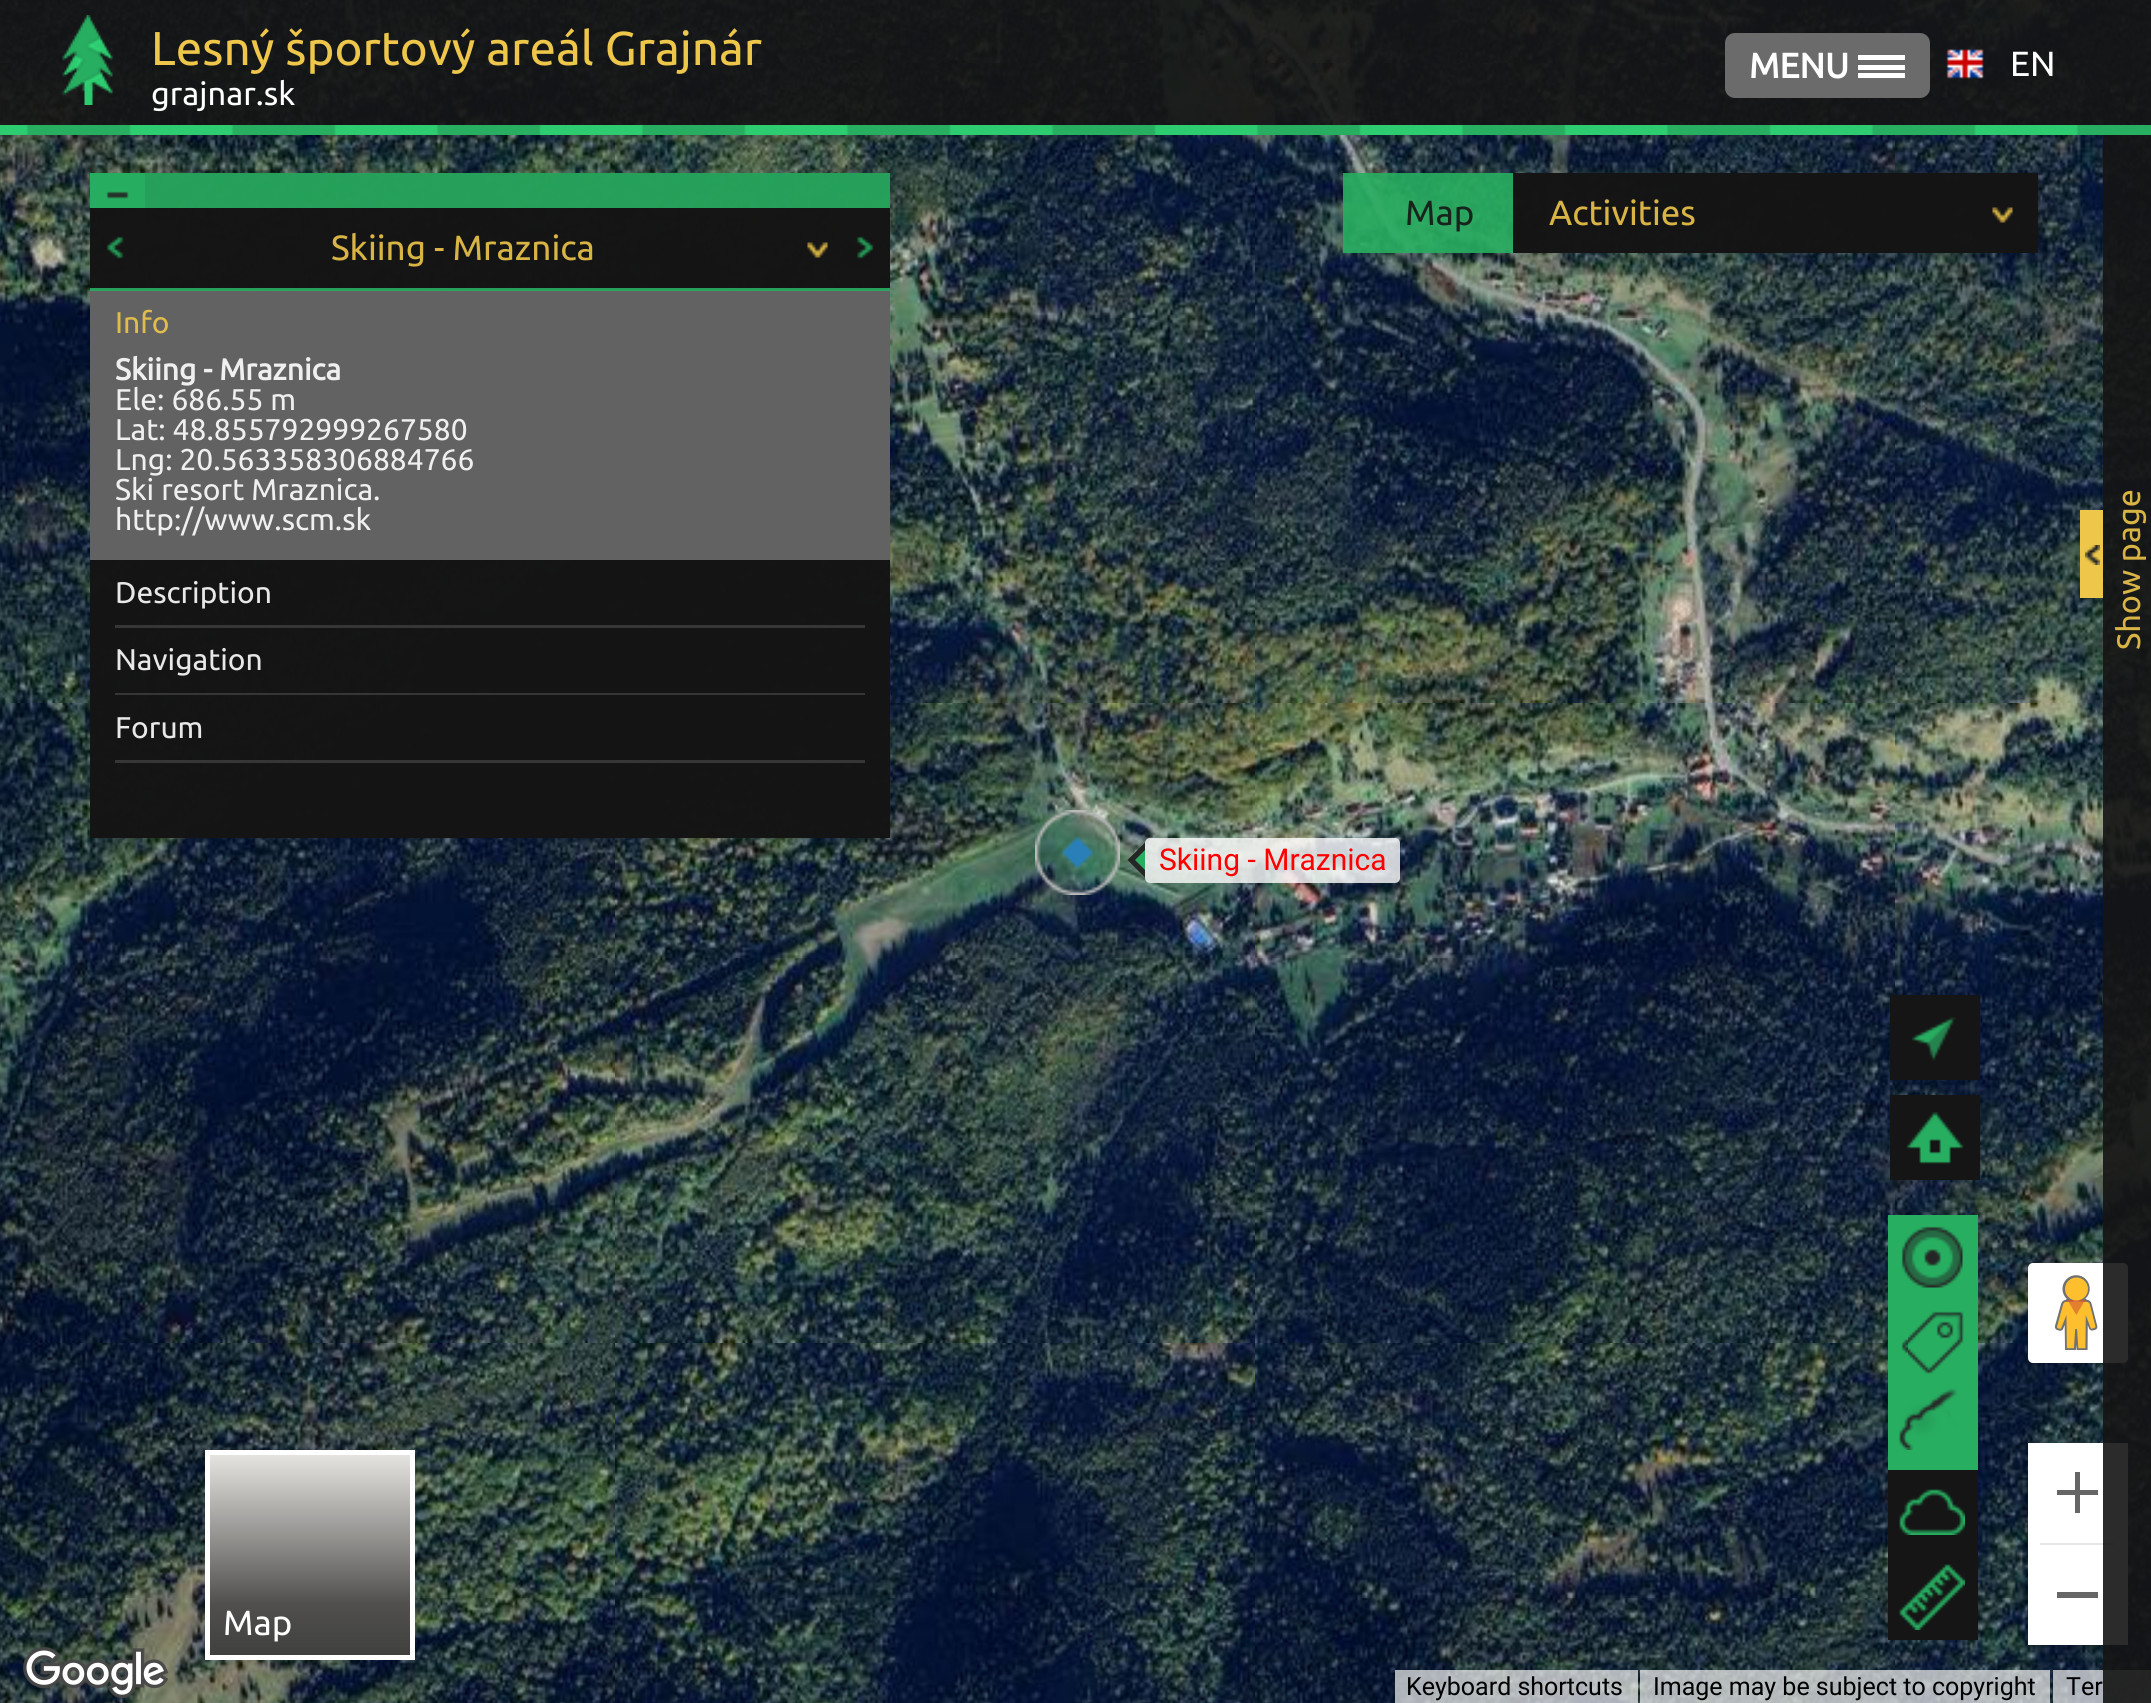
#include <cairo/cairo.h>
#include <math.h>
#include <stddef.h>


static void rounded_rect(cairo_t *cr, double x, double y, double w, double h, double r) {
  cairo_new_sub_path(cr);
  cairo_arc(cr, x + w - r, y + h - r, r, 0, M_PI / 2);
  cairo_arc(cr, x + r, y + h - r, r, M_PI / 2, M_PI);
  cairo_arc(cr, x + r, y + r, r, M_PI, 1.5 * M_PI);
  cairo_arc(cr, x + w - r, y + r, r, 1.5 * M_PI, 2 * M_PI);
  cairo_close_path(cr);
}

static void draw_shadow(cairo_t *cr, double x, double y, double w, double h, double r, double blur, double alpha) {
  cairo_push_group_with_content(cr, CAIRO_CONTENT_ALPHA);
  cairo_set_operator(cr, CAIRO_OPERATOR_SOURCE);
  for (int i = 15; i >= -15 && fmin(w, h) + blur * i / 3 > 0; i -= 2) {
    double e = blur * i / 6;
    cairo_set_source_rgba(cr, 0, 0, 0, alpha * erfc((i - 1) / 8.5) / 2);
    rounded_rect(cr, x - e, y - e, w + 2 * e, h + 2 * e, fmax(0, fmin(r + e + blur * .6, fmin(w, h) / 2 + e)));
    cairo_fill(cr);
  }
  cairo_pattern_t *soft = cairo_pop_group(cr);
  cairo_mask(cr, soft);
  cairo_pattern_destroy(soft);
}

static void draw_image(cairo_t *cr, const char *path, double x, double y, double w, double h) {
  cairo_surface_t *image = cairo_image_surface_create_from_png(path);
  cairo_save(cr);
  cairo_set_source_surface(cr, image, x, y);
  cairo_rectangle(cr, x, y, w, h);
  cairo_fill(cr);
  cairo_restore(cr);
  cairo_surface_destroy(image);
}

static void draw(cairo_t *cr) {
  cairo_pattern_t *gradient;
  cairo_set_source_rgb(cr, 1, 1, 1);
  cairo_paint(cr);
  draw_image(cr, "images/10.png", 0, 0, 615, 63);
  draw_image(cr, "images/11.png", 615, 0, 640, 63);
  draw_image(cr, "images/12.png", 1255, 0, 640, 63);
  draw_image(cr, "images/13.png", 1895, 0, 256, 63);
  draw_image(cr, "images/14.png", 0, 63, 615, 640);
  draw_image(cr, "images/15.png", 615, 63, 640, 640);
  draw_image(cr, "images/16.png", 1255, 63, 640, 640);
  draw_image(cr, "images/17.png", 1895, 63, 256, 640);
  cairo_set_source_rgba(cr, 21 / 255.0, 21 / 255.0, 21 / 255.0, 0.9);
  cairo_rectangle(cr, 0, 0, 2151, 125);
  cairo_fill(cr);
  draw_image(cr, "images/1.png", 62, 15, 51, 90);
  cairo_set_source_rgb(cr, 107 / 255.0, 107 / 255.0, 107 / 255.0);
  rounded_rect(cr, 1725, 33, 205, 65, 10);
  cairo_fill(cr);
  cairo_set_source_rgb(cr, 1, 1, 1);
  cairo_rectangle(cr, 1858, 73, 47, 5);
  cairo_fill(cr);
  cairo_rectangle(cr, 1858, 65, 47, 5);
  cairo_fill(cr);
  cairo_rectangle(cr, 1858, 55, 47, 5);
  cairo_fill(cr);
  draw_image(cr, "images/2.png", 1946, 49, 38, 30);
  draw_image(cr, "images/3.png", 0, 125, 2151, 10);
  cairo_set_source_rgba(cr, 39 / 255.0, 174 / 255.0, 97 / 255.0, 0.9);
  cairo_rectangle(cr, 1343, 173, 170, 80);
  cairo_fill(cr);
  cairo_set_source_rgba(cr, 21 / 255.0, 21 / 255.0, 21 / 255.0, 0.9);
  cairo_rectangle(cr, 1513, 173, 525, 80);
  cairo_fill(cr);
  cairo_rectangle(cr, 1513, 173, 525, 80);
  cairo_fill(cr);
  draw_image(cr, "images/4.png", 1992, 207, 21, 16);
  draw_image(cr, "images/18.png", 0, 703, 615, 640);
  draw_image(cr, "images/19.png", 615, 703, 640, 640);
  cairo_rectangle(cr, 90, 173, 800, 665);
  cairo_fill(cr);
  cairo_set_source_rgb(cr, 39 / 255.0, 173 / 255.0, 96 / 255.0);
  cairo_rectangle(cr, 90, 173, 55, 35);
  cairo_fill(cr);
  draw_image(cr, "images/5.png", 106, 191, 23, 8);
  cairo_set_source_rgba(cr, 39 / 255.0, 174 / 255.0, 97 / 255.0, 0.9);
  cairo_rectangle(cr, 145, 173, 745, 35);
  cairo_fill(cr);
  cairo_set_source_rgba(cr, 21 / 255.0, 21 / 255.0, 21 / 255.0, 0.9);
  cairo_rectangle(cr, 90, 208, 800, 80);
  cairo_fill(cr);
  draw_image(cr, "images/6.png", 106, 236, 18, 23);
  cairo_set_source_rgb(cr, 98 / 255.0, 98 / 255.0, 98 / 255.0);
  cairo_rectangle(cr, 90, 290, 800, 270);
  cairo_fill(cr);
  cairo_set_source_rgba(cr, 39 / 255.0, 174 / 255.0, 97 / 255.0, 0.9);
  cairo_rectangle(cr, 90, 288, 800, 3);
  cairo_fill(cr);
  draw_image(cr, "images/7.png", 807, 242, 21, 16);
  draw_image(cr, "images/8.png", 856, 236, 18, 23);
  cairo_set_source_rgba(cr, 21 / 255.0, 21 / 255.0, 21 / 255.0, 0.9);
  cairo_rectangle(cr, 90, 560, 800, 278);
  cairo_fill(cr);
  cairo_set_source_rgb(cr, 54 / 255.0, 54 / 255.0, 54 / 255.0);
  cairo_rectangle(cr, 115, 625, 750, 3);
  cairo_fill(cr);
  cairo_rectangle(cr, 115, 693, 750, 2);
  cairo_fill(cr);
  cairo_rectangle(cr, 115, 760, 750, 3);
  cairo_fill(cr);
  cairo_set_source_rgb(cr, 238 / 255.0, 198 / 255.0, 74 / 255.0);
  cairo_rectangle(cr, 2080, 510, 23, 88);
  cairo_fill(cr);
  draw_image(cr, "images/9.png", 2085, 545, 15, 20);
  draw_image(cr, "images/21.png", 1895, 703, 256, 640);
  draw_image(cr, "images/25.png", 1895, 1343, 256, 360);
  cairo_set_source_rgb(cr, 0, 0, 0);
  draw_shadow(cr, 2030, 1268, 95, 95, 2.5, 5, 0.3);
  cairo_set_source_rgb(cr, 1, 1, 1);
  rounded_rect(cr, 2028, 1263, 100, 100, 5);
  cairo_fill(cr);
  cairo_set_source_rgb(cr, 0, 0, 0);
  draw_shadow(cr, 2030, 1448, 95, 197, 2.5, 5, 0.3);
  cairo_set_source_rgb(cr, 1, 1, 1);
  cairo_rectangle(cr, 2028, 1443, 100, 202);
  cairo_fill(cr);
  cairo_set_source_rgb(cr, 230 / 255.0, 230 / 255.0, 230 / 255.0);
  cairo_rectangle(cr, 2040, 1543, 75, 2);
  cairo_fill(cr);
  cairo_set_source_rgba(cr, 245 / 255.0, 245 / 255.0, 245 / 255.0, 0.7);
  cairo_rectangle(cr, 2053, 1670, 98, 33);
  cairo_fill(cr);
  cairo_set_source_rgba(cr, 21 / 255.0, 21 / 255.0, 21 / 255.0, 0.9);
  cairo_rectangle(cr, 2103, 135, 48, 1568);
  cairo_fill(cr);
  draw_image(cr, "images/20.png", 1255, 703, 640, 640);
  draw_image(cr, "images/22.png", 0, 1343, 615, 360);
  draw_image(cr, "images/23.png", 615, 1343, 640, 360);
  draw_image(cr, "images/24.png", 1255, 1343, 640, 360);
  draw_image(cr, "images/26.png", 1035, 810, 85, 85);
  cairo_set_source_rgba(cr, 1, 1, 1, 0.8);
  rounded_rect(cr, 1145, 838, 255, 45, 5);
  cairo_fill(cr);
  cairo_set_source_rgb(cr, 37 / 255.0, 37 / 255.0, 37 / 255.0);
  cairo_new_path(cr);
  cairo_move_to(cr, 1145, 842.5);
  cairo_line_to(cr, 1145, 877.5);
  cairo_line_to(cr, 1127.5, 860);
  cairo_close_path(cr);
  cairo_fill(cr);
  cairo_set_source_rgb(cr, 39 / 255.0, 174 / 255.0, 97 / 255.0);
  cairo_new_path(cr);
  cairo_move_to(cr, 1145, 850);
  cairo_line_to(cr, 1145, 870);
  cairo_line_to(cr, 1135, 860);
  cairo_close_path(cr);
  cairo_fill(cr);
  draw_image(cr, "images/27.png", 2054, 1275, 44, 75);
  cairo_set_source_rgb(cr, 102 / 255.0, 102 / 255.0, 102 / 255.0);
  cairo_new_path(cr);
  cairo_move_to(cr, 2075, 1495);
  cairo_line_to(cr, 2057, 1495);
  cairo_line_to(cr, 2057, 1490);
  cairo_line_to(cr, 2075, 1490);
  cairo_line_to(cr, 2075, 1472);
  cairo_line_to(cr, 2080, 1472);
  cairo_line_to(cr, 2080, 1490);
  cairo_line_to(cr, 2098, 1490);
  cairo_line_to(cr, 2098, 1495);
  cairo_line_to(cr, 2080, 1495);
  cairo_line_to(cr, 2080, 1513);
  cairo_line_to(cr, 2075, 1513);
  cairo_close_path(cr);
  cairo_fill(cr);
  cairo_rectangle(cr, 2057, 1592, 41, 6);
  cairo_fill(cr);
  draw_image(cr, "images/28.png", 23, 1647, 146, 51);
  cairo_set_source_rgba(cr, 245 / 255.0, 245 / 255.0, 245 / 255.0, 0.7);
  cairo_rectangle(cr, 1395, 1670, 243, 33);
  cairo_fill(cr);
  cairo_rectangle(cr, 1640, 1670, 410, 33);
  cairo_fill(cr);
  cairo_set_source_rgb(cr, 21 / 255.0, 21 / 255.0, 21 / 255.0);
  cairo_rectangle(cr, 1890, 995, 90, 85);
  cairo_fill(cr);
  draw_image(cr, "images/29.png", 1912, 1017, 44, 44);
  cairo_rectangle(cr, 1890, 1095, 90, 85);
  cairo_fill(cr);
  draw_image(cr, "images/30.png", 1906, 1112, 58, 52);
  cairo_rectangle(cr, 207.5, 1452.5, 205, 205);
  cairo_set_source_rgb(cr, 1, 1, 1);
  cairo_set_line_width(cr, 5);
  cairo_stroke(cr);
  gradient = cairo_pattern_create_linear(310, 1455, 310, 1655);
  cairo_pattern_add_color_stop_rgba(gradient, 0, 229 / 255.0, 227 / 255.0, 223 / 255.0, 1);
  cairo_pattern_add_color_stop_rgba(gradient, 0.75, 80 / 255.0, 79 / 255.0, 78 / 255.0, 1);
  cairo_pattern_add_color_stop_rgba(gradient, 1, 64 / 255.0, 64 / 255.0, 62 / 255.0, 1);
  cairo_set_source(cr, gradient);
  cairo_pattern_destroy(gradient);
  cairo_rectangle(cr, 210, 1455, 200, 200);
  cairo_fill(cr);
  cairo_set_source_rgb(cr, 39 / 255.0, 174 / 255.0, 97 / 255.0);
  cairo_rectangle(cr, 1888, 1215, 90, 255);
  cairo_fill(cr);
  draw_image(cr, "images/31.png", 1901, 1226, 62, 62);
  draw_image(cr, "images/32.png", 1901, 1311, 63, 63);
  draw_image(cr, "images/33.png", 1899, 1388, 59, 62);
  cairo_set_source_rgb(cr, 21 / 255.0, 21 / 255.0, 21 / 255.0);
  cairo_rectangle(cr, 1888, 1470, 90, 170);
  cairo_fill(cr);
  draw_image(cr, "images/34.png", 1899, 1489, 66, 46);
  draw_image(cr, "images/35.png", 1899, 1564, 66, 66);
  cairo_select_font_face(cr, "Ubuntu", CAIRO_FONT_SLANT_NORMAL, CAIRO_FONT_WEIGHT_NORMAL);
  cairo_set_font_size(cr, 47.5);
  cairo_set_source_rgb(cr, 238 / 255.0, 198 / 255.0, 74 / 255.0);
  cairo_move_to(cr, 151, 65);
  cairo_show_text(cr, "Lesný športový areál Grajnár");
  cairo_set_font_size(cr, 32.5);
  cairo_set_source_rgb(cr, 1, 1, 1);
  cairo_move_to(cr, 151, 105);
  cairo_show_text(cr, "grajnar.sk");
  cairo_select_font_face(cr, "Ubuntu", CAIRO_FONT_SLANT_NORMAL, CAIRO_FONT_WEIGHT_BOLD);
  cairo_set_font_size(cr, 35);
  cairo_move_to(cr, 1749, 78);
  cairo_show_text(cr, "MENU");
  cairo_select_font_face(cr, "Ubuntu", CAIRO_FONT_SLANT_NORMAL, CAIRO_FONT_WEIGHT_NORMAL);
  cairo_move_to(cr, 2010, 76);
  cairo_show_text(cr, "EN");
  cairo_set_source_rgb(cr, 23 / 255.0, 36 / 255.0, 28 / 255.0);
  cairo_move_to(cr, 1405, 225);
  cairo_show_text(cr, "Map");
  cairo_set_source_rgb(cr, 216 / 255.0, 180 / 255.0, 69 / 255.0);
  cairo_move_to(cr, 1549, 225);
  cairo_show_text(cr, "Activities");
  cairo_move_to(cr, 331, 260);
  cairo_show_text(cr, "Skiing - Mraznica");
  cairo_set_font_size(cr, 30);
  cairo_set_source_rgb(cr, 224 / 255.0, 188 / 255.0, 76 / 255.0);
  cairo_move_to(cr, 115, 333);
  cairo_show_text(cr, "Info");
  cairo_select_font_face(cr, "Ubuntu", CAIRO_FONT_SLANT_NORMAL, CAIRO_FONT_WEIGHT_BOLD);
  cairo_set_source_rgb(cr, 239 / 255.0, 239 / 255.0, 239 / 255.0);
  cairo_move_to(cr, 115, 380);
  cairo_show_text(cr, "Skiing - Mraznica");
  cairo_select_font_face(cr, "Ubuntu", CAIRO_FONT_SLANT_NORMAL, CAIRO_FONT_WEIGHT_NORMAL);
  cairo_move_to(cr, 115, 410);
  cairo_show_text(cr, "Ele: 686.55 m");
  cairo_move_to(cr, 115, 440);
  cairo_show_text(cr, "Lat: 48.855792999267580");
  cairo_move_to(cr, 115, 470);
  cairo_show_text(cr, "Lng: 20.563358306884766");
  cairo_move_to(cr, 115, 500);
  cairo_show_text(cr, "Ski resort Mraznica.");
  cairo_move_to(cr, 115, 530);
  cairo_show_text(cr, "http://www.scm.sk");
  cairo_set_source_rgb(cr, 232 / 255.0, 232 / 255.0, 232 / 255.0);
  cairo_move_to(cr, 115, 603);
  cairo_show_text(cr, "Description");
  cairo_move_to(cr, 115, 670);
  cairo_show_text(cr, "Navigation");
  cairo_move_to(cr, 115, 738);
  cairo_show_text(cr, "Forum");
  cairo_set_font_size(cr, 32.5);
  cairo_set_source_rgb(cr, 216 / 255.0, 180 / 255.0, 69 / 255.0);
  cairo_save(cr);
  cairo_translate(cr, 2140, 650);
  cairo_rotate(cr, -90 * M_PI / 180);
  cairo_move_to(cr, 0, 0);
  cairo_show_text(cr, "Show page");
  cairo_restore(cr);
  cairo_select_font_face(cr, "Roboto", CAIRO_FONT_SLANT_NORMAL, CAIRO_FONT_WEIGHT_NORMAL);
  cairo_set_font_size(cr, 30);
  cairo_set_source_rgb(cr, 1, 0, 0);
  cairo_move_to(cr, 1159, 870);
  cairo_show_text(cr, "Skiing - Mraznica");
  cairo_set_font_size(cr, 25);
  cairo_set_source_rgb(cr, 0, 0, 0);
  cairo_move_to(cr, 1406, 1695);
  cairo_show_text(cr, "Keyboard shortcuts");
  cairo_move_to(cr, 1653, 1695);
  cairo_show_text(cr, "Image may be subject to copyright");
  cairo_move_to(cr, 2066, 1695);
  cairo_show_text(cr, "Ter");
  cairo_select_font_face(cr, "Ubuntu", CAIRO_FONT_SLANT_NORMAL, CAIRO_FONT_WEIGHT_NORMAL);
  cairo_set_font_size(cr, 35);
  cairo_set_source_rgb(cr, 1, 1, 1);
  cairo_move_to(cr, 223, 1635);
  cairo_show_text(cr, "Map");
}

int main(void) {
  cairo_surface_t *surface = cairo_image_surface_create(CAIRO_FORMAT_RGB24, 2151, 1703);
  cairo_t *cr = cairo_create(surface);
  cairo_font_options_t *options = cairo_font_options_create();
  cairo_font_options_set_hint_metrics(options, CAIRO_HINT_METRICS_OFF);
  cairo_font_options_set_hint_style(options, CAIRO_HINT_STYLE_NONE);
  cairo_set_font_options(cr, options);
  cairo_set_miter_limit(cr, 4);
  draw(cr);
  cairo_surface_write_to_png(surface, "out.png");
  cairo_font_options_destroy(options);
  cairo_destroy(cr);
  cairo_surface_destroy(surface);
  return 0;
}
